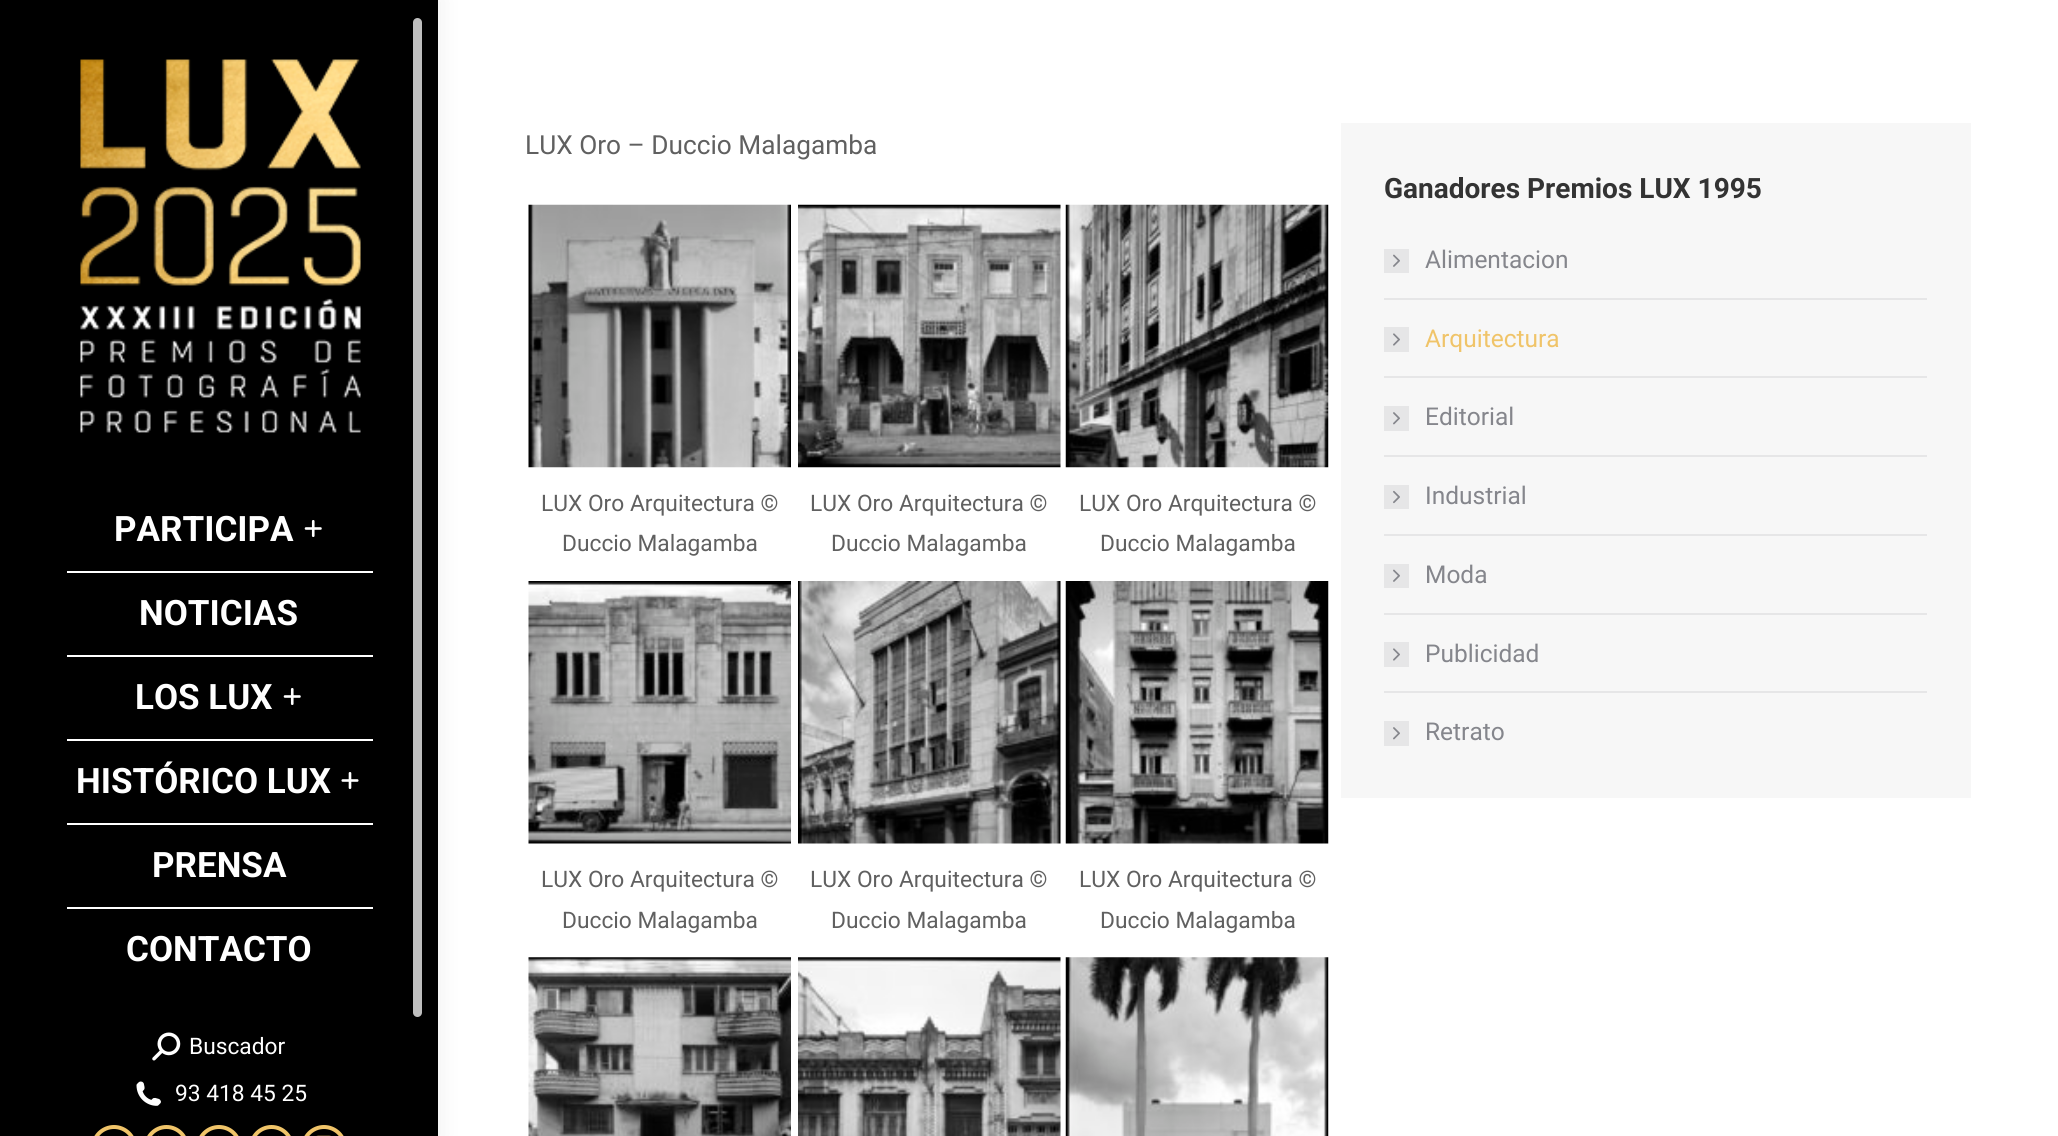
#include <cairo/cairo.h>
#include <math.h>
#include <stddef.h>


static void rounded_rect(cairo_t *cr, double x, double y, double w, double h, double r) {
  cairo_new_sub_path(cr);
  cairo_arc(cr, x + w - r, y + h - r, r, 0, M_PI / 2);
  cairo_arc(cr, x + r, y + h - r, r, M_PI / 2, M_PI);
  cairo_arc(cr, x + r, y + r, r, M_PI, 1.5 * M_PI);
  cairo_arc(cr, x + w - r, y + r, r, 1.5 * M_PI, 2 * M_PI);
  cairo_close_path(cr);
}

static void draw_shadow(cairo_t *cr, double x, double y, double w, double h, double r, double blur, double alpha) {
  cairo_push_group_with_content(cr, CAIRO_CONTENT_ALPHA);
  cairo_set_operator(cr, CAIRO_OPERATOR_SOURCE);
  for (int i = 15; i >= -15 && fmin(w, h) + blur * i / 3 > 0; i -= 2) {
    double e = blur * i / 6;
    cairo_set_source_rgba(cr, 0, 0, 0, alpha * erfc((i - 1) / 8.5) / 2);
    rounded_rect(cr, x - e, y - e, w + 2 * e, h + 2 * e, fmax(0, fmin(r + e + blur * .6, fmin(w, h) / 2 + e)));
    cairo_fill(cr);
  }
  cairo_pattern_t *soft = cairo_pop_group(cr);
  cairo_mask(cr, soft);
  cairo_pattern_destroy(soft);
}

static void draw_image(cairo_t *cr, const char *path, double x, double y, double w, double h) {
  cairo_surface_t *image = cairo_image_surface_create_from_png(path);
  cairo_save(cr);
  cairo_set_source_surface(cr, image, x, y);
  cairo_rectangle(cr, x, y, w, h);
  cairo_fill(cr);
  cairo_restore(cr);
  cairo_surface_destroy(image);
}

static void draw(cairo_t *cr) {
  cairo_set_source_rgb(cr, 1, 1, 1);
  cairo_paint(cr);
  cairo_set_source_rgb(cr, 0, 0, 0);
  draw_shadow(cr, -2, -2, 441, 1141, 0, 13, 0.07);
  cairo_set_source_rgb(cr, 0, 0, 0);
  cairo_rectangle(cr, 0, 0, 438, 1136);
  cairo_fill(cr);
  draw_image(cr, "images/1.png", 80, 59, 281, 374);
  draw_image(cr, "images/2.png", 304, 520, 18, 17);
  cairo_set_source_rgb(cr, 1, 1, 1);
  cairo_rectangle(cr, 67, 571, 306, 2);
  cairo_fill(cr);
  cairo_rectangle(cr, 67, 655, 306, 2);
  cairo_fill(cr);
  draw_image(cr, "images/2.png", 283, 688, 18, 17);
  cairo_rectangle(cr, 67, 739, 306, 2);
  cairo_fill(cr);
  draw_image(cr, "images/3.png", 341, 772, 18, 17);
  cairo_rectangle(cr, 67, 823, 306, 2);
  cairo_fill(cr);
  cairo_rectangle(cr, 67, 907, 306, 2);
  cairo_fill(cr);
  draw_image(cr, "images/4.png", 152, 1032, 29, 29);
  draw_image(cr, "images/5.png", 136, 1081, 25, 25);
  rounded_rect(cr, 93, 1127, 42, 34, 21);
  cairo_set_source_rgb(cr, 240 / 255.0, 196 / 255.0, 105 / 255.0);
  cairo_set_line_width(cr, 4);
  cairo_stroke(cr);
  rounded_rect(cr, 146, 1127, 41, 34, 20.5);
  cairo_stroke(cr);
  draw_image(cr, "images/6.png", 158, 1135, 1, 1);
  rounded_rect(cr, 198, 1127, 42, 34, 21);
  cairo_stroke(cr);
  rounded_rect(cr, 251, 1127, 41, 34, 20.5);
  cairo_stroke(cr);
  rounded_rect(cr, 303, 1127, 42, 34, 21);
  cairo_stroke(cr);
  draw_image(cr, "images/7.png", 316, 1135, 15, 1);
  cairo_set_source_rgb(cr, 191 / 255.0, 191 / 255.0, 191 / 255.0);
  rounded_rect(cr, 413, 18, 9, 999, 4.5);
  cairo_fill(cr);
  draw_image(cr, "images/8.png", 528, 204, 263, 264);
  draw_image(cr, "images/9.png", 798, 204, 263, 264);
  draw_image(cr, "images/10.png", 1065, 204, 264, 264);
  draw_image(cr, "images/11.png", 528, 581, 263, 263);
  draw_image(cr, "images/12.png", 798, 581, 263, 263);
  draw_image(cr, "images/13.png", 1065, 581, 264, 263);
  draw_image(cr, "images/14.png", 528, 957, 263, 179);
  draw_image(cr, "images/15.png", 798, 957, 263, 179);
  draw_image(cr, "images/16.png", 1065, 957, 264, 179);
  cairo_set_source_rgb(cr, 247 / 255.0, 247 / 255.0, 247 / 255.0);
  cairo_rectangle(cr, 1341, 123, 630, 675);
  cairo_fill(cr);
  cairo_set_source_rgb(cr, 230 / 255.0, 230 / 255.0, 231 / 255.0);
  cairo_rectangle(cr, 1384, 249, 25, 24);
  cairo_fill(cr);
  draw_image(cr, "images/17.png", 1393, 254, 7, 13);
  cairo_rectangle(cr, 1384, 298, 543, 2);
  cairo_fill(cr);
  cairo_rectangle(cr, 1384, 327, 25, 25);
  cairo_fill(cr);
  draw_image(cr, "images/18.png", 1393, 333, 7, 13);
  cairo_rectangle(cr, 1384, 376, 543, 2);
  cairo_fill(cr);
  cairo_rectangle(cr, 1384, 406, 25, 25);
  cairo_fill(cr);
  draw_image(cr, "images/19.png", 1393, 412, 7, 13);
  cairo_rectangle(cr, 1384, 455, 543, 2);
  cairo_fill(cr);
  cairo_rectangle(cr, 1384, 485, 25, 24);
  cairo_fill(cr);
  draw_image(cr, "images/20.png", 1393, 490, 7, 14);
  cairo_rectangle(cr, 1384, 534, 543, 2);
  cairo_fill(cr);
  cairo_rectangle(cr, 1384, 564, 25, 24);
  cairo_fill(cr);
  draw_image(cr, "images/17.png", 1393, 569, 7, 13);
  cairo_rectangle(cr, 1384, 613, 543, 2);
  cairo_fill(cr);
  cairo_rectangle(cr, 1384, 642, 25, 25);
  cairo_fill(cr);
  draw_image(cr, "images/18.png", 1393, 648, 7, 13);
  cairo_rectangle(cr, 1384, 691, 543, 2);
  cairo_fill(cr);
  cairo_rectangle(cr, 1384, 721, 25, 25);
  cairo_fill(cr);
  draw_image(cr, "images/19.png", 1393, 727, 7, 13);
  cairo_select_font_face(cr, "Roboto", CAIRO_FONT_SLANT_NORMAL, CAIRO_FONT_WEIGHT_BOLD);
  cairo_set_font_size(cr, 35);
  cairo_set_source_rgb(cr, 1, 1, 1);
  cairo_move_to(cr, 114, 541);
  cairo_show_text(cr, "PARTICIPA");
  cairo_move_to(cr, 139, 625);
  cairo_show_text(cr, "NOTICIAS");
  cairo_move_to(cr, 135, 709);
  cairo_show_text(cr, "LOS LUX");
  cairo_move_to(cr, 76, 793);
  cairo_show_text(cr, "HISTÓRICO LUX");
  cairo_move_to(cr, 152, 877);
  cairo_show_text(cr, "PRENSA");
  cairo_move_to(cr, 126, 961);
  cairo_show_text(cr, "CONTACTO");
  cairo_select_font_face(cr, "Roboto", CAIRO_FONT_SLANT_NORMAL, CAIRO_FONT_WEIGHT_NORMAL);
  cairo_set_font_size(cr, 22.75);
  cairo_move_to(cr, 189, 1054);
  cairo_show_text(cr, "Buscador");
  cairo_move_to(cr, 175, 1101);
  cairo_show_text(cr, "93 418 45 25");
  cairo_set_font_size(cr, 26.25);
  cairo_set_source_rgb(cr, 96 / 255.0, 96 / 255.0, 96 / 255.0);
  cairo_move_to(cr, 525, 154);
  cairo_show_text(cr, "LUX Oro – Duccio Malagamba");
  cairo_set_font_size(cr, 22.75);
  cairo_move_to(cr, 541, 511);
  cairo_show_text(cr, "LUX Oro Arquitectura ©");
  cairo_move_to(cr, 562, 551);
  cairo_show_text(cr, "Duccio Malagamba");
  cairo_move_to(cr, 810, 511);
  cairo_show_text(cr, "LUX Oro Arquitectura ©");
  cairo_move_to(cr, 831, 551);
  cairo_show_text(cr, "Duccio Malagamba");
  cairo_move_to(cr, 1079, 511);
  cairo_show_text(cr, "LUX Oro Arquitectura ©");
  cairo_move_to(cr, 1100, 551);
  cairo_show_text(cr, "Duccio Malagamba");
  cairo_move_to(cr, 541, 887);
  cairo_show_text(cr, "LUX Oro Arquitectura ©");
  cairo_move_to(cr, 562, 928);
  cairo_show_text(cr, "Duccio Malagamba");
  cairo_move_to(cr, 810, 887);
  cairo_show_text(cr, "LUX Oro Arquitectura ©");
  cairo_move_to(cr, 831, 928);
  cairo_show_text(cr, "Duccio Malagamba");
  cairo_move_to(cr, 1079, 887);
  cairo_show_text(cr, "LUX Oro Arquitectura ©");
  cairo_move_to(cr, 1100, 928);
  cairo_show_text(cr, "Duccio Malagamba");
  cairo_select_font_face(cr, "Roboto", CAIRO_FONT_SLANT_NORMAL, CAIRO_FONT_WEIGHT_BOLD);
  cairo_set_font_size(cr, 28);
  cairo_set_source_rgb(cr, 51 / 255.0, 51 / 255.0, 51 / 255.0);
  cairo_move_to(cr, 1384, 198);
  cairo_show_text(cr, "Ganadores Premios LUX 1995");
  cairo_select_font_face(cr, "Roboto", CAIRO_FONT_SLANT_NORMAL, CAIRO_FONT_WEIGHT_NORMAL);
  cairo_set_font_size(cr, 24.5);
  cairo_set_source_rgb(cr, 133 / 255.0, 134 / 255.0, 140 / 255.0);
  cairo_move_to(cr, 1425, 268);
  cairo_show_text(cr, "Alimentacion");
  cairo_set_source_rgb(cr, 240 / 255.0, 196 / 255.0, 105 / 255.0);
  cairo_move_to(cr, 1425, 347);
  cairo_show_text(cr, "Arquitectura");
  cairo_set_source_rgb(cr, 133 / 255.0, 134 / 255.0, 140 / 255.0);
  cairo_move_to(cr, 1425, 425);
  cairo_show_text(cr, "Editorial");
  cairo_move_to(cr, 1425, 504);
  cairo_show_text(cr, "Industrial");
  cairo_move_to(cr, 1425, 583);
  cairo_show_text(cr, "Moda");
  cairo_move_to(cr, 1425, 662);
  cairo_show_text(cr, "Publicidad");
  cairo_move_to(cr, 1425, 740);
  cairo_show_text(cr, "Retrato");
}

int main(void) {
  cairo_surface_t *surface = cairo_image_surface_create(CAIRO_FORMAT_RGB24, 2058, 1136);
  cairo_t *cr = cairo_create(surface);
  cairo_font_options_t *options = cairo_font_options_create();
  cairo_font_options_set_hint_metrics(options, CAIRO_HINT_METRICS_OFF);
  cairo_font_options_set_hint_style(options, CAIRO_HINT_STYLE_NONE);
  cairo_set_font_options(cr, options);
  cairo_set_miter_limit(cr, 4);
  draw(cr);
  cairo_surface_write_to_png(surface, "out.png");
  cairo_font_options_destroy(options);
  cairo_destroy(cr);
  cairo_surface_destroy(surface);
  return 0;
}
